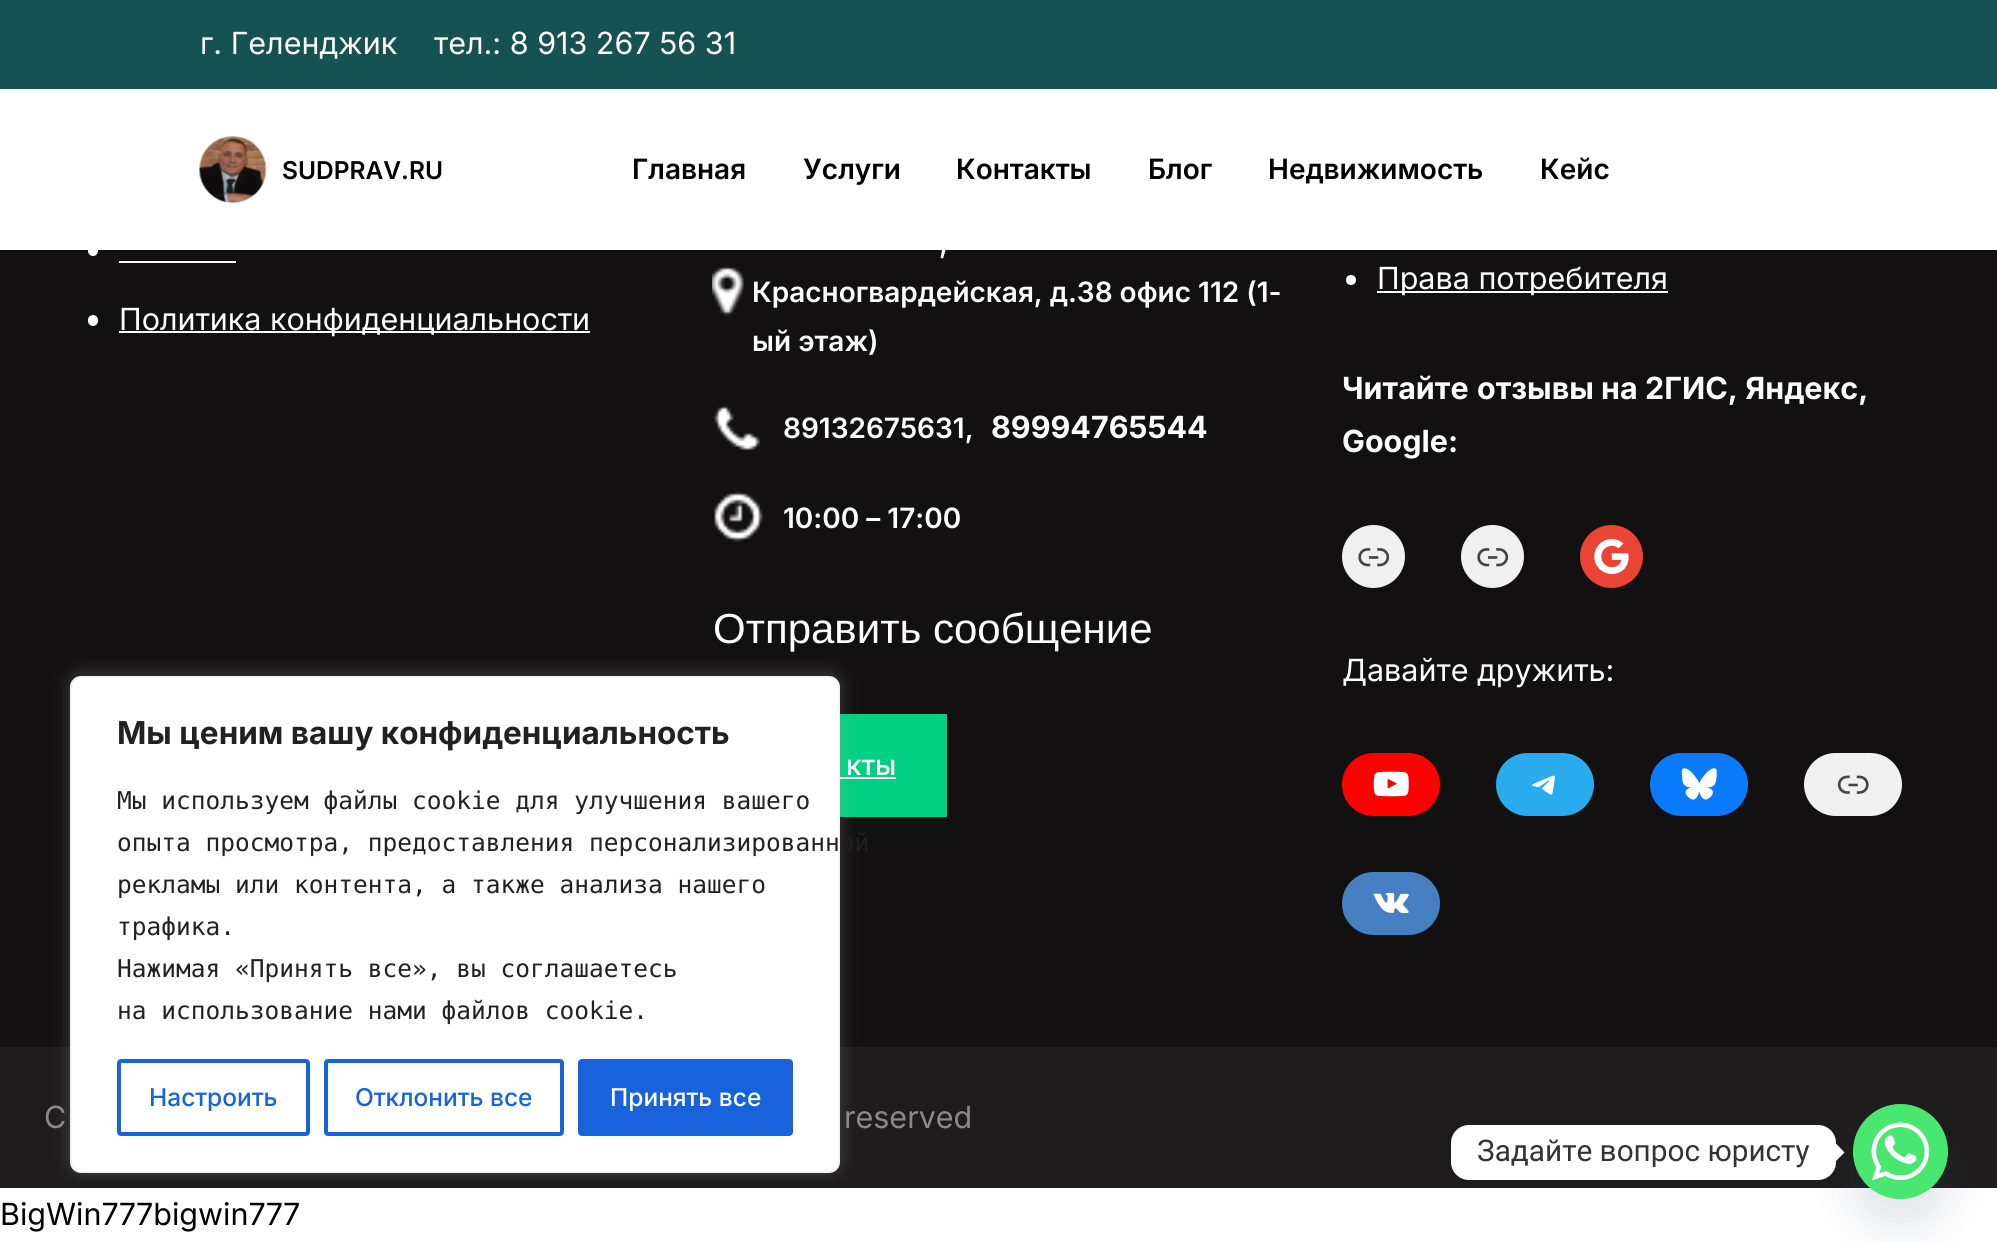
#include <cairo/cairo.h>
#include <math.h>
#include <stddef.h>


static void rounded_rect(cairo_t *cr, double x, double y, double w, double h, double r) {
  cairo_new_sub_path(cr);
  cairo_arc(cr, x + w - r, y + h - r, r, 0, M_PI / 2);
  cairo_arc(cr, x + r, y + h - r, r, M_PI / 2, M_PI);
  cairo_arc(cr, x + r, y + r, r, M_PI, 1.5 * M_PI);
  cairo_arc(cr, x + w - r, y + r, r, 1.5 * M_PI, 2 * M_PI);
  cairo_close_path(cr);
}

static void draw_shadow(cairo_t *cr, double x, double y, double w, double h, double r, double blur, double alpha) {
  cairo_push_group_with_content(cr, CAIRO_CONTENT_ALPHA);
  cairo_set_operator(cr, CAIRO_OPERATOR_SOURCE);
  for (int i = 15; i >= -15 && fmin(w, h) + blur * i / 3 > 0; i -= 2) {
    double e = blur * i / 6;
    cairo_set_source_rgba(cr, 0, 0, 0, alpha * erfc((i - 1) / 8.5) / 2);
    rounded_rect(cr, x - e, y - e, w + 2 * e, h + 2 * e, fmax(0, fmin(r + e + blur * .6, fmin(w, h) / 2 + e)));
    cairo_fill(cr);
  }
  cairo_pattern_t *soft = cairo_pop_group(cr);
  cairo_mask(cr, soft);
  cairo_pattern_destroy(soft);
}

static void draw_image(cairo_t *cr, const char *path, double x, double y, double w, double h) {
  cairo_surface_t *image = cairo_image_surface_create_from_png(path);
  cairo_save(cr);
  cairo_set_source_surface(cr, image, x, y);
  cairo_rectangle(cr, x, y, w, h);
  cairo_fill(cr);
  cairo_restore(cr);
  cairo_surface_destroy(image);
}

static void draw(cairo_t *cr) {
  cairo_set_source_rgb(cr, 1, 1, 1);
  cairo_paint(cr);
  cairo_set_source_rgb(cr, 22 / 255.0, 81 / 255.0, 83 / 255.0);
  cairo_rectangle(cr, 0, 0, 1997, 89);
  cairo_fill(cr);
  draw_image(cr, "images/1.png", 199, 136, 68, 68);
  cairo_set_source_rgb(cr, 18 / 255.0, 16 / 255.0, 16 / 255.0);
  cairo_rectangle(cr, 0, 250, 1997, 797);
  cairo_fill(cr);
  cairo_set_source_rgb(cr, 1, 1, 1);
  rounded_rect(cr, 88, 245, 10, 11, 5);
  cairo_fill(cr);
  cairo_rectangle(cr, 119, 261, 117, 2);
  cairo_fill(cr);
  rounded_rect(cr, 88, 315, 10, 11, 5);
  cairo_fill(cr);
  cairo_rectangle(cr, 119, 331, 471, 2);
  cairo_fill(cr);
  draw_image(cr, "images/2.png", 712, 266, 32, 50);
  draw_image(cr, "images/3.png", 714, 405, 46, 45);
  draw_image(cr, "images/4.png", 714, 491, 49, 51);
  cairo_set_source_rgb(cr, 0, 208 / 255.0, 132 / 255.0);
  cairo_rectangle(cr, 840, 714, 107, 103);
  cairo_fill(cr);
  cairo_set_source_rgb(cr, 1, 1, 1);
  cairo_rectangle(cr, 840, 777, 56, 2);
  cairo_fill(cr);
  cairo_arc(cr, 1351, 280, 5, 0, 2 * M_PI);
  cairo_fill(cr);
  cairo_rectangle(cr, 1377, 291, 291, 2);
  cairo_fill(cr);
  cairo_set_source_rgb(cr, 240 / 255.0, 240 / 255.0, 240 / 255.0);
  cairo_arc(cr, 1373.5, 556.5, 31.5, 0, 2 * M_PI);
  cairo_fill(cr);
  draw_image(cr, "images/5.png", 1358, 548, 32, 19);
  cairo_arc(cr, 1492.5, 556.5, 31.5, 0, 2 * M_PI);
  cairo_fill(cr);
  draw_image(cr, "images/5.png", 1477, 548, 32, 19);
  cairo_set_source_rgb(cr, 234 / 255.0, 68 / 255.0, 52 / 255.0);
  cairo_arc(cr, 1611.5, 556.5, 31.5, 0, 2 * M_PI);
  cairo_fill(cr);
  draw_image(cr, "images/6.png", 1594, 539, 35, 35);
  cairo_set_source_rgb(cr, 1, 0, 0);
  rounded_rect(cr, 1342, 753, 98, 63, 31.5);
  cairo_fill(cr);
  draw_image(cr, "images/7.png", 1373, 771, 36, 26);
  cairo_set_source_rgb(cr, 42 / 255.0, 171 / 255.0, 238 / 255.0);
  rounded_rect(cr, 1496, 753, 98, 63, 31.5);
  cairo_fill(cr);
  draw_image(cr, "images/8.png", 1532, 775, 23, 20);
  cairo_set_source_rgb(cr, 10 / 255.0, 122 / 255.0, 1);
  rounded_rect(cr, 1650, 753, 98, 63, 31.5);
  cairo_fill(cr);
  draw_image(cr, "images/9.png", 1681, 768, 36, 32);
  cairo_set_source_rgb(cr, 240 / 255.0, 240 / 255.0, 240 / 255.0);
  rounded_rect(cr, 1804, 753, 98, 63, 31.5);
  cairo_fill(cr);
  draw_image(cr, "images/10.png", 1837, 775, 32, 19);
  cairo_set_source_rgb(cr, 70 / 255.0, 128 / 255.0, 194 / 255.0);
  rounded_rect(cr, 1342, 872, 98, 63, 31.5);
  cairo_fill(cr);
  draw_image(cr, "images/11.png", 1373, 892, 36, 21);
  cairo_set_source_rgb(cr, 29 / 255.0, 27 / 255.0, 27 / 255.0);
  cairo_rectangle(cr, 0, 1047, 1997, 141);
  cairo_fill(cr);
  cairo_set_source_rgb(cr, 172 / 255.0, 171 / 255.0, 171 / 255.0);
  draw_shadow(cr, 70, 674, 770, 497, 11, 9, 0.3);
  cairo_set_source_rgb(cr, 1, 1, 1);
  rounded_rect(cr, 71, 677, 768, 495, 10);
  cairo_fill_preserve(cr);
  cairo_set_source_rgb(cr, 244 / 255.0, 244 / 255.0, 244 / 255.0);
  cairo_stroke(cr);
  rounded_rect(cr, 119, 1061, 189, 73, 2);
  cairo_set_source_rgb(cr, 24 / 255.0, 99 / 255.0, 220 / 255.0);
  cairo_set_line_width(cr, 4);
  cairo_stroke(cr);
  rounded_rect(cr, 326, 1061, 236, 73, 2);
  cairo_stroke(cr);
  rounded_rect(cr, 580, 1061, 211, 73, 2);
  cairo_fill_preserve(cr);
  cairo_stroke(cr);
  cairo_set_source_rgb(cr, 73 / 255.0, 104 / 255.0, 126 / 255.0);
  draw_shadow(cr, 1853, 1132, 95, 95, 47.5, 21, 0.16);
  cairo_set_source_rgb(cr, 1, 1, 1);
  rounded_rect(cr, 1451, 1125, 385, 55, 18);
  cairo_fill(cr);
  cairo_new_path(cr);
  cairo_move_to(cr, 1836, 1161);
  cairo_line_to(cr, 1836, 1143.5);
  cairo_line_to(cr, 1844.5, 1152.5);
  cairo_close_path(cr);
  cairo_fill(cr);
  cairo_set_source_rgb(cr, 73 / 255.0, 230 / 255.0, 112 / 255.0);
  cairo_arc(cr, 1900.5, 1151.5, 47.5, 0, 2 * M_PI);
  cairo_fill(cr);
  draw_image(cr, "images/12.png", 1853, 1104, 95, 95);
  cairo_select_font_face(cr, "Inter", CAIRO_FONT_SLANT_NORMAL, CAIRO_FONT_WEIGHT_NORMAL);
  cairo_set_font_size(cr, 30.5);
  cairo_set_source_rgb(cr, 1, 1, 1);
  cairo_move_to(cr, 200, 54);
  cairo_show_text(cr, "г. Геленджик");
  cairo_move_to(cr, 434, 54);
  cairo_show_text(cr, "тел.: 8 913 267 56 31");
  cairo_select_font_face(cr, "Inter SemiBold", CAIRO_FONT_SLANT_NORMAL, CAIRO_FONT_WEIGHT_NORMAL);
  cairo_set_font_size(cr, 24.5);
  cairo_set_source_rgb(cr, 0, 0, 0);
  cairo_move_to(cr, 282, 179);
  cairo_show_text(cr, "SUDPRAV.RU");
  cairo_set_font_size(cr, 28);
  cairo_move_to(cr, 632, 179);
  cairo_show_text(cr, "Главная");
  cairo_move_to(cr, 803, 179);
  cairo_show_text(cr, "Услуги");
  cairo_move_to(cr, 956, 179);
  cairo_show_text(cr, "Контакты");
  cairo_move_to(cr, 1148, 179);
  cairo_show_text(cr, "Блог");
  cairo_move_to(cr, 1268, 179);
  cairo_show_text(cr, "Недвижимость");
  cairo_move_to(cr, 1540, 179);
  cairo_show_text(cr, "Кейс");
  cairo_select_font_face(cr, "Inter", CAIRO_FONT_SLANT_NORMAL, CAIRO_FONT_WEIGHT_NORMAL);
  cairo_set_font_size(cr, 30.5);
  cairo_set_source_rgb(cr, 1, 1, 1);
  cairo_move_to(cr, 119, 330);
  cairo_show_text(cr, "Политика конфиденциальности");
  cairo_select_font_face(cr, "Inter SemiBold", CAIRO_FONT_SLANT_NORMAL, CAIRO_FONT_WEIGHT_NORMAL);
  cairo_set_font_size(cr, 28);
  cairo_move_to(cr, 939, 253);
  cairo_show_text(cr, ",");
  cairo_move_to(cr, 752, 302);
  cairo_show_text(cr, "Красногвардейская, д.38 офис 112 (1-");
  cairo_move_to(cr, 752, 351);
  cairo_show_text(cr, "ый этаж)");
  cairo_move_to(cr, 783, 438);
  cairo_show_text(cr, "89132675631,");
  cairo_select_font_face(cr, "Inter", CAIRO_FONT_SLANT_NORMAL, CAIRO_FONT_WEIGHT_BOLD);
  cairo_set_font_size(cr, 30.5);
  cairo_move_to(cr, 991, 438);
  cairo_show_text(cr, "89994765544");
  cairo_select_font_face(cr, "Inter SemiBold", CAIRO_FONT_SLANT_NORMAL, CAIRO_FONT_WEIGHT_NORMAL);
  cairo_set_font_size(cr, 28);
  cairo_move_to(cr, 783, 528);
  cairo_show_text(cr, "10:00 – 17:00");
  cairo_select_font_face(cr, "Liberation Sans", CAIRO_FONT_SLANT_NORMAL, CAIRO_FONT_WEIGHT_NORMAL);
  cairo_set_font_size(cr, 42);
  cairo_move_to(cr, 713, 643);
  cairo_show_text(cr, "Отправить сообщение");
  cairo_select_font_face(cr, "Inter Medium", CAIRO_FONT_SLANT_NORMAL, CAIRO_FONT_WEIGHT_NORMAL);
  cairo_set_font_size(cr, 28);
  cairo_move_to(cr, 846, 775);
  cairo_show_text(cr, "кты");
  cairo_select_font_face(cr, "Inter", CAIRO_FONT_SLANT_NORMAL, CAIRO_FONT_WEIGHT_NORMAL);
  cairo_set_font_size(cr, 30.5);
  cairo_move_to(cr, 1377, 289);
  cairo_show_text(cr, "Права потребителя");
  cairo_select_font_face(cr, "Inter", CAIRO_FONT_SLANT_NORMAL, CAIRO_FONT_WEIGHT_BOLD);
  cairo_move_to(cr, 1342, 399);
  cairo_show_text(cr, "Читайте");
  cairo_move_to(cr, 1477, 399);
  cairo_show_text(cr, "отзывы на 2ГИС, Яндекс,");
  cairo_move_to(cr, 1342, 452);
  cairo_show_text(cr, "Google:");
  cairo_select_font_face(cr, "Inter", CAIRO_FONT_SLANT_NORMAL, CAIRO_FONT_WEIGHT_NORMAL);
  cairo_move_to(cr, 1342, 681);
  cairo_show_text(cr, "Давайте дружить:");
  cairo_set_source_rgb(cr, 144 / 255.0, 135 / 255.0, 135 / 255.0);
  cairo_move_to(cr, 44, 1128);
  cairo_show_text(cr, "C");
  cairo_move_to(cr, 844, 1128);
  cairo_show_text(cr, "reserved");
  cairo_select_font_face(cr, "Inter", CAIRO_FONT_SLANT_NORMAL, CAIRO_FONT_WEIGHT_BOLD);
  cairo_set_font_size(cr, 31.5);
  cairo_set_source_rgb(cr, 33 / 255.0, 33 / 255.0, 33 / 255.0);
  cairo_move_to(cr, 117, 744);
  cairo_show_text(cr, "Мы ценим вашу конфиденциальность");
  cairo_select_font_face(cr, "DejaVu Sans Mono", CAIRO_FONT_SLANT_NORMAL, CAIRO_FONT_WEIGHT_NORMAL);
  cairo_set_font_size(cr, 24.5);
  cairo_move_to(cr, 117, 809);
  cairo_show_text(cr, "Мы используем файлы cookie для улучшения вашего");
  cairo_move_to(cr, 117, 851);
  cairo_show_text(cr, "опыта просмотра, предоставления персонализированной");
  cairo_move_to(cr, 117, 893);
  cairo_show_text(cr, "рекламы или контента, а также анализа нашего");
  cairo_move_to(cr, 117, 935);
  cairo_show_text(cr, "трафика.");
  cairo_move_to(cr, 117, 977);
  cairo_show_text(cr, "Нажимая «Принять все», вы соглашаетесь");
  cairo_move_to(cr, 117, 1019);
  cairo_show_text(cr, "на использование нами файлов cookie.");
  cairo_select_font_face(cr, "Inter Medium", CAIRO_FONT_SLANT_NORMAL, CAIRO_FONT_WEIGHT_NORMAL);
  cairo_set_source_rgb(cr, 24 / 255.0, 99 / 255.0, 220 / 255.0);
  cairo_move_to(cr, 149, 1106);
  cairo_show_text(cr, "Настроить");
  cairo_move_to(cr, 355, 1106);
  cairo_show_text(cr, "Отклонить все");
  cairo_set_source_rgb(cr, 1, 1, 1);
  cairo_move_to(cr, 610, 1106);
  cairo_show_text(cr, "Принять все");
  cairo_select_font_face(cr, "Roboto", CAIRO_FONT_SLANT_NORMAL, CAIRO_FONT_WEIGHT_NORMAL);
  cairo_set_font_size(cr, 29.75);
  cairo_set_source_rgb(cr, 51 / 255.0, 51 / 255.0, 51 / 255.0);
  cairo_move_to(cr, 1477, 1161);
  cairo_show_text(cr, "Задайте вопрос юристу");
  cairo_select_font_face(cr, "Inter", CAIRO_FONT_SLANT_NORMAL, CAIRO_FONT_WEIGHT_NORMAL);
  cairo_set_font_size(cr, 30.5);
  cairo_set_source_rgb(cr, 0, 0, 0);
  cairo_move_to(cr, 0, 1225);
  cairo_show_text(cr, "BigWin777bigwin777");
}

int main(void) {
  cairo_surface_t *surface = cairo_image_surface_create(CAIRO_FORMAT_RGB24, 1997, 1242);
  cairo_t *cr = cairo_create(surface);
  cairo_font_options_t *options = cairo_font_options_create();
  cairo_font_options_set_hint_metrics(options, CAIRO_HINT_METRICS_OFF);
  cairo_font_options_set_hint_style(options, CAIRO_HINT_STYLE_NONE);
  cairo_set_font_options(cr, options);
  cairo_set_miter_limit(cr, 4);
  draw(cr);
  cairo_surface_write_to_png(surface, "out.png");
  cairo_font_options_destroy(options);
  cairo_destroy(cr);
  cairo_surface_destroy(surface);
  return 0;
}
